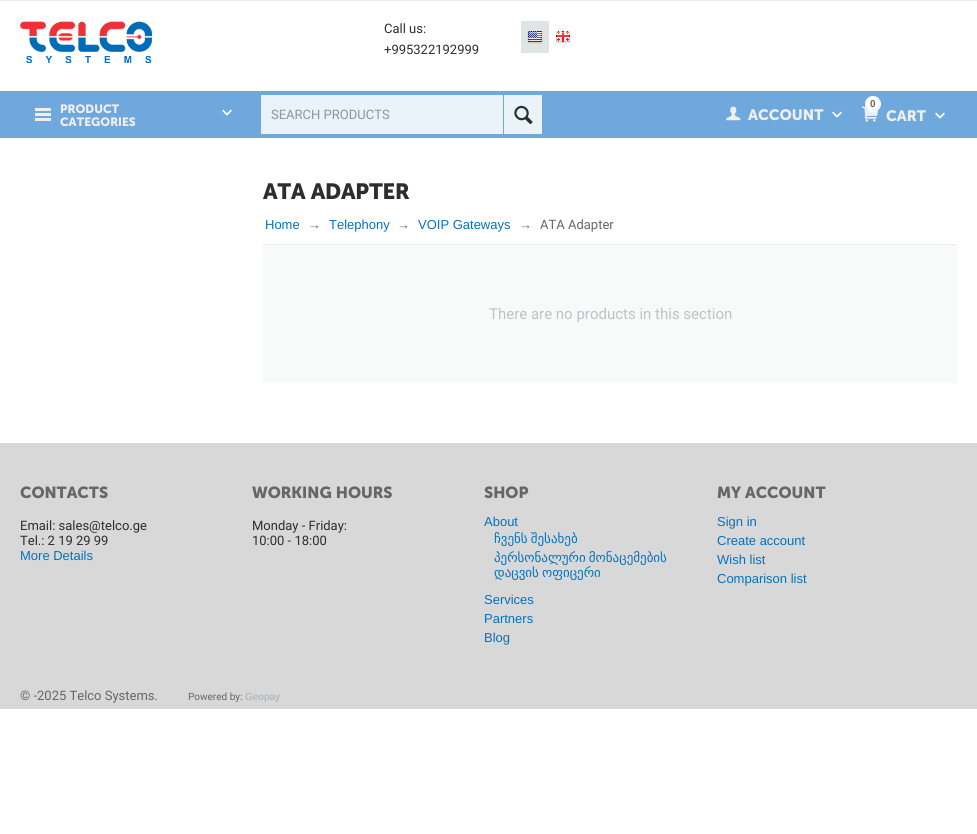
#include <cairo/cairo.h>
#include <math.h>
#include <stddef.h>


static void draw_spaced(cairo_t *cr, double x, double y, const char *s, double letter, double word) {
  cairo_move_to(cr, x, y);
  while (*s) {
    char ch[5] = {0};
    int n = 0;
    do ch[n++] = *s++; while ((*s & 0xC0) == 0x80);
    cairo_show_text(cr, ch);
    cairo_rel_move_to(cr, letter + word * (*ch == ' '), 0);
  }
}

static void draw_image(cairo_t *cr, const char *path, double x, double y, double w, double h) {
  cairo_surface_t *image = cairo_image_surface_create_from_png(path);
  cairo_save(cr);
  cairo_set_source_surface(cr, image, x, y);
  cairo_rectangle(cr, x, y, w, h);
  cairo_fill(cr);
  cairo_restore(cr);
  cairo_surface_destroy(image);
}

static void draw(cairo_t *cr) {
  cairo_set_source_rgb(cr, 1, 1, 1);
  cairo_paint(cr);
  cairo_set_source_rgb(cr, 238 / 255.0, 238 / 255.0, 238 / 255.0);
  cairo_rectangle(cr, 0, 0, 977, 1);
  cairo_fill(cr);
  draw_image(cr, "images/1.png", 20, 21, 132, 42);
  cairo_set_source_rgb(cr, 223 / 255.0, 228 / 255.0, 228 / 255.0);
  cairo_rectangle(cr, 521, 21, 28, 32);
  cairo_fill(cr);
  draw_image(cr, "images/2.png", 527, 31, 16, 13);
  draw_image(cr, "images/3.png", 555, 31, 16, 13);
  cairo_set_source_rgb(cr, 111 / 255.0, 168 / 255.0, 220 / 255.0);
  cairo_rectangle(cr, 0, 91, 977, 47);
  cairo_fill(cr);
  draw_image(cr, "images/4.png", 35, 108, 16, 13);
  draw_image(cr, "images/5.png", 222, 109, 10, 7);
  cairo_set_source_rgb(cr, 234 / 255.0, 242 / 255.0, 250 / 255.0);
  cairo_rectangle(cr, 261, 95, 242, 39);
  cairo_fill(cr);
  cairo_rectangle(cr, 504, 95, 38, 39);
  cairo_fill(cr);
  draw_image(cr, "images/6.png", 514, 105, 19, 19);
  draw_image(cr, "images/7.png", 726, 106, 15, 15);
  draw_image(cr, "images/5.png", 832, 111, 10, 7);
  draw_image(cr, "images/8.png", 862, 106, 16, 16);
  cairo_set_source_rgb(cr, 1, 1, 1);
  cairo_arc(cr, 873, 104, 8, 0, 2 * M_PI);
  cairo_fill(cr);
  draw_image(cr, "images/5.png", 935, 112, 10, 7);
  cairo_set_source_rgb(cr, 238 / 255.0, 238 / 255.0, 238 / 255.0);
  cairo_rectangle(cr, 263, 244, 694, 1);
  cairo_fill(cr);
  cairo_set_source_rgb(cr, 248 / 255.0, 249 / 255.0, 249 / 255.0);
  cairo_rectangle(cr, 263, 245, 694, 138);
  cairo_fill(cr);
  cairo_set_source_rgb(cr, 216 / 255.0, 216 / 255.0, 216 / 255.0);
  cairo_rectangle(cr, 0, 443, 977, 266);
  cairo_fill(cr);
  cairo_select_font_face(cr, "Roboto", CAIRO_FONT_SLANT_NORMAL, CAIRO_FONT_WEIGHT_NORMAL);
  cairo_set_font_size(cr, 13);
  cairo_set_source_rgb(cr, 45 / 255.0, 45 / 255.0, 45 / 255.0);
  cairo_move_to(cr, 384, 33);
  cairo_show_text(cr, "Call us:");
  cairo_move_to(cr, 384, 54);
  cairo_show_text(cr, "+995322192999");
  cairo_select_font_face(cr, "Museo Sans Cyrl", CAIRO_FONT_SLANT_NORMAL, CAIRO_FONT_WEIGHT_BOLD);
  cairo_set_font_size(cr, 12);
  cairo_set_source_rgb(cr, 239 / 255.0, 239 / 255.0, 239 / 255.0);
  cairo_move_to(cr, 60, 113);
  cairo_show_text(cr, "PRODUCT");
  cairo_move_to(cr, 60, 126);
  cairo_show_text(cr, "CATEGORIES");
  cairo_select_font_face(cr, "Roboto", CAIRO_FONT_SLANT_NORMAL, CAIRO_FONT_WEIGHT_NORMAL);
  cairo_set_font_size(cr, 13);
  cairo_set_source_rgb(cr, 147 / 255.0, 147 / 255.0, 147 / 255.0);
  cairo_move_to(cr, 271, 119);
  cairo_show_text(cr, "SEARCH PRODUCTS");
  cairo_select_font_face(cr, "Museo Sans Cyrl", CAIRO_FONT_SLANT_NORMAL, CAIRO_FONT_WEIGHT_BOLD);
  cairo_set_font_size(cr, 15);
  cairo_set_source_rgb(cr, 239 / 255.0, 239 / 255.0, 239 / 255.0);
  cairo_move_to(cr, 748, 120);
  cairo_show_text(cr, "ACCOUNT");
  cairo_select_font_face(cr, "Liberation Sans", CAIRO_FONT_SLANT_NORMAL, CAIRO_FONT_WEIGHT_BOLD);
  cairo_set_font_size(cr, 10);
  cairo_set_source_rgb(cr, 102 / 255.0, 102 / 255.0, 102 / 255.0);
  cairo_move_to(cr, 870, 107);
  cairo_show_text(cr, "0");
  cairo_select_font_face(cr, "Museo Sans Cyrl", CAIRO_FONT_SLANT_NORMAL, CAIRO_FONT_WEIGHT_BOLD);
  cairo_set_font_size(cr, 15);
  cairo_set_source_rgb(cr, 239 / 255.0, 239 / 255.0, 239 / 255.0);
  cairo_move_to(cr, 886, 121);
  cairo_show_text(cr, "CART");
  cairo_set_font_size(cr, 22);
  cairo_set_source_rgb(cr, 45 / 255.0, 45 / 255.0, 45 / 255.0);
  draw_spaced(cr, 263, 199, "ATA ADAPTER", -0.25, 0);
  cairo_select_font_face(cr, "Liberation Sans", CAIRO_FONT_SLANT_NORMAL, CAIRO_FONT_WEIGHT_NORMAL);
  cairo_set_font_size(cr, 13);
  cairo_set_source_rgb(cr, 0, 115 / 255.0, 191 / 255.0);
  cairo_move_to(cr, 265, 229);
  cairo_show_text(cr, "Home");
  cairo_set_source_rgb(cr, 102 / 255.0, 102 / 255.0, 102 / 255.0);
  cairo_move_to(cr, 308, 229);
  cairo_show_text(cr, "→");
  cairo_set_source_rgb(cr, 0, 115 / 255.0, 191 / 255.0);
  cairo_move_to(cr, 329, 229);
  cairo_show_text(cr, "Telephony");
  cairo_set_source_rgb(cr, 102 / 255.0, 102 / 255.0, 102 / 255.0);
  cairo_move_to(cr, 397, 229);
  cairo_show_text(cr, "→");
  cairo_set_source_rgb(cr, 0, 115 / 255.0, 191 / 255.0);
  cairo_move_to(cr, 418, 229);
  cairo_show_text(cr, "VOIP Gateways");
  cairo_set_source_rgb(cr, 102 / 255.0, 102 / 255.0, 102 / 255.0);
  cairo_move_to(cr, 519, 229);
  cairo_show_text(cr, "→");
  cairo_select_font_face(cr, "Roboto", CAIRO_FONT_SLANT_NORMAL, CAIRO_FONT_WEIGHT_NORMAL);
  cairo_move_to(cr, 540, 229);
  cairo_show_text(cr, "ATA Adapter");
  cairo_set_font_size(cr, 15);
  cairo_set_source_rgb(cr, 189 / 255.0, 195 / 255.0, 199 / 255.0);
  cairo_move_to(cr, 489, 319);
  cairo_show_text(cr, "There are no products in this section");
  cairo_select_font_face(cr, "Museo Sans Cyrl", CAIRO_FONT_SLANT_NORMAL, CAIRO_FONT_WEIGHT_BOLD);
  cairo_set_font_size(cr, 16);
  cairo_set_source_rgb(cr, 102 / 255.0, 102 / 255.0, 102 / 255.0);
  cairo_move_to(cr, 20, 498);
  cairo_show_text(cr, "CONTACTS");
  cairo_select_font_face(cr, "Roboto", CAIRO_FONT_SLANT_NORMAL, CAIRO_FONT_WEIGHT_NORMAL);
  cairo_set_font_size(cr, 13);
  cairo_set_source_rgb(cr, 45 / 255.0, 45 / 255.0, 45 / 255.0);
  cairo_move_to(cr, 20, 530);
  cairo_show_text(cr, "Email: sales@telco.ge");
  cairo_move_to(cr, 20, 545);
  cairo_show_text(cr, "Tel.: 2 19 29 99");
  cairo_select_font_face(cr, "Liberation Sans", CAIRO_FONT_SLANT_NORMAL, CAIRO_FONT_WEIGHT_NORMAL);
  cairo_set_source_rgb(cr, 0, 115 / 255.0, 191 / 255.0);
  cairo_move_to(cr, 20, 560);
  cairo_show_text(cr, "More Details");
  cairo_select_font_face(cr, "Museo Sans Cyrl", CAIRO_FONT_SLANT_NORMAL, CAIRO_FONT_WEIGHT_BOLD);
  cairo_set_font_size(cr, 16);
  cairo_set_source_rgb(cr, 102 / 255.0, 102 / 255.0, 102 / 255.0);
  cairo_move_to(cr, 252, 498);
  cairo_show_text(cr, "WORKING HOURS");
  cairo_select_font_face(cr, "Roboto", CAIRO_FONT_SLANT_NORMAL, CAIRO_FONT_WEIGHT_NORMAL);
  cairo_set_font_size(cr, 13);
  cairo_set_source_rgb(cr, 45 / 255.0, 45 / 255.0, 45 / 255.0);
  cairo_move_to(cr, 252, 530);
  cairo_show_text(cr, "Monday - Friday:");
  cairo_move_to(cr, 252, 545);
  cairo_show_text(cr, "10:00 - 18:00");
  cairo_select_font_face(cr, "Museo Sans Cyrl", CAIRO_FONT_SLANT_NORMAL, CAIRO_FONT_WEIGHT_BOLD);
  cairo_set_font_size(cr, 16);
  cairo_set_source_rgb(cr, 102 / 255.0, 102 / 255.0, 102 / 255.0);
  cairo_move_to(cr, 484, 498);
  cairo_show_text(cr, "SHOP");
  cairo_select_font_face(cr, "Liberation Sans", CAIRO_FONT_SLANT_NORMAL, CAIRO_FONT_WEIGHT_NORMAL);
  cairo_set_font_size(cr, 13);
  cairo_set_source_rgb(cr, 0, 115 / 255.0, 191 / 255.0);
  cairo_move_to(cr, 484, 526);
  cairo_show_text(cr, "About");
  cairo_select_font_face(cr, "DejaVu Sans", CAIRO_FONT_SLANT_NORMAL, CAIRO_FONT_WEIGHT_NORMAL);
  draw_spaced(cr, 494, 543, "ჩვენს შესახებ", 0, -1);
  draw_spaced(cr, 494, 562, "პერსონალური მონაცემების", 0, -1);
  draw_spaced(cr, 494, 577, "დაცვის ოფიცერი", 0, -1);
  cairo_select_font_face(cr, "Liberation Sans", CAIRO_FONT_SLANT_NORMAL, CAIRO_FONT_WEIGHT_NORMAL);
  cairo_move_to(cr, 484, 604);
  cairo_show_text(cr, "Services");
  cairo_move_to(cr, 484, 623);
  cairo_show_text(cr, "Partners");
  cairo_move_to(cr, 484, 642);
  cairo_show_text(cr, "Blog");
  cairo_select_font_face(cr, "Museo Sans Cyrl", CAIRO_FONT_SLANT_NORMAL, CAIRO_FONT_WEIGHT_BOLD);
  cairo_set_font_size(cr, 16);
  cairo_set_source_rgb(cr, 102 / 255.0, 102 / 255.0, 102 / 255.0);
  cairo_move_to(cr, 717, 498);
  cairo_show_text(cr, "MY ACCOUNT");
  cairo_select_font_face(cr, "Liberation Sans", CAIRO_FONT_SLANT_NORMAL, CAIRO_FONT_WEIGHT_NORMAL);
  cairo_set_font_size(cr, 13);
  cairo_set_source_rgb(cr, 0, 115 / 255.0, 191 / 255.0);
  cairo_move_to(cr, 717, 526);
  cairo_show_text(cr, "Sign in");
  cairo_move_to(cr, 717, 545);
  cairo_show_text(cr, "Create account");
  cairo_move_to(cr, 717, 564);
  cairo_show_text(cr, "Wish list");
  cairo_move_to(cr, 717, 583);
  cairo_show_text(cr, "Comparison list");
  cairo_select_font_face(cr, "Roboto", CAIRO_FONT_SLANT_NORMAL, CAIRO_FONT_WEIGHT_NORMAL);
  cairo_set_source_rgb(cr, 102 / 255.0, 102 / 255.0, 102 / 255.0);
  cairo_move_to(cr, 20, 700);
  cairo_show_text(cr, "© -2025 Telco Systems.");
  cairo_set_font_size(cr, 10);
  cairo_move_to(cr, 188, 700);
  cairo_show_text(cr, "Powered by:");
  cairo_select_font_face(cr, "Liberation Sans", CAIRO_FONT_SLANT_NORMAL, CAIRO_FONT_WEIGHT_NORMAL);
  cairo_set_source_rgb(cr, 163 / 255.0, 172 / 255.0, 184 / 255.0);
  cairo_move_to(cr, 245, 700);
  cairo_show_text(cr, "Geopay");
}

int main(void) {
  cairo_surface_t *surface = cairo_image_surface_create(CAIRO_FORMAT_RGB24, 977, 834);
  cairo_t *cr = cairo_create(surface);
  cairo_font_options_t *options = cairo_font_options_create();
  cairo_font_options_set_hint_metrics(options, CAIRO_HINT_METRICS_OFF);
  cairo_font_options_set_hint_style(options, CAIRO_HINT_STYLE_NONE);
  cairo_set_font_options(cr, options);
  cairo_set_miter_limit(cr, 4);
  draw(cr);
  cairo_surface_write_to_png(surface, "out.png");
  cairo_font_options_destroy(options);
  cairo_destroy(cr);
  cairo_surface_destroy(surface);
  return 0;
}
